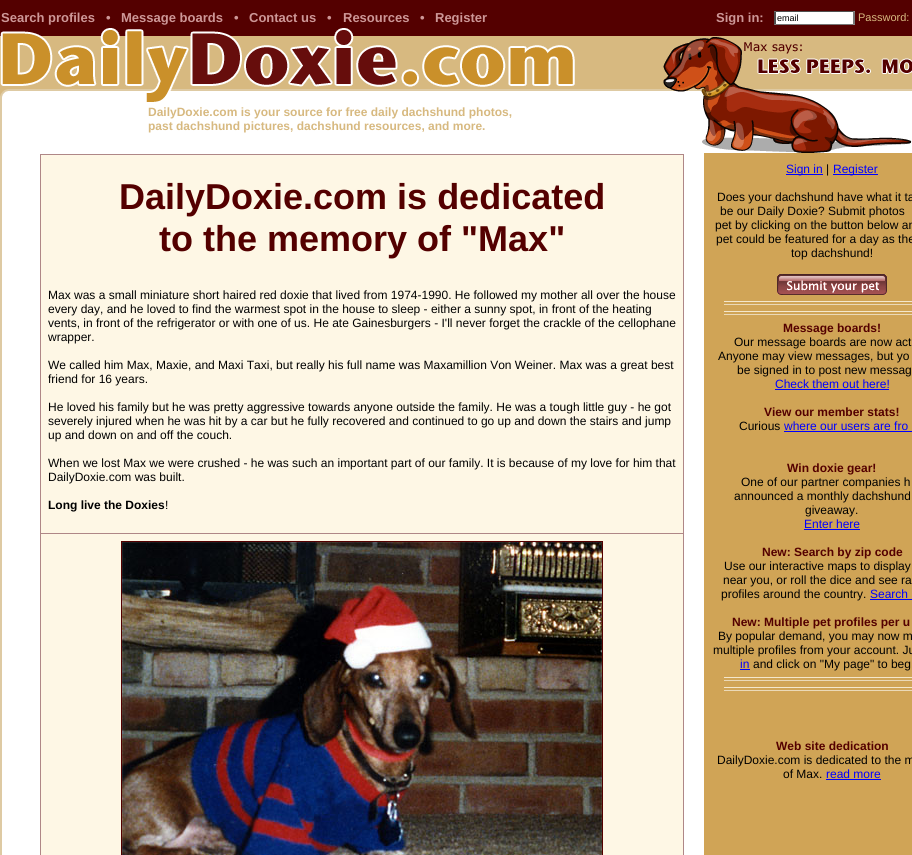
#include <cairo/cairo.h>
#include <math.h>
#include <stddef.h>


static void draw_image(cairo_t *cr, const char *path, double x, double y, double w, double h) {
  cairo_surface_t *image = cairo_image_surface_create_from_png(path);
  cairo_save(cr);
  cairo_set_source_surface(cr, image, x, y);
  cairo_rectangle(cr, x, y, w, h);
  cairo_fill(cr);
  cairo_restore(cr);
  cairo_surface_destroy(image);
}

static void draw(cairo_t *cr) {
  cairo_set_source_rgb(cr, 1, 1, 1);
  cairo_paint(cr);
  draw_image(cr, "images/1.png", 0, 0, 912, 153);
  cairo_set_source_rgb(cr, 1, 1, 1);
  cairo_rectangle(cr, 774, 11, 81, 14);
  cairo_fill(cr);
  cairo_set_source_rgb(cr, 79 / 255.0, 79 / 255.0, 79 / 255.0);
  cairo_new_path(cr);
  cairo_move_to(cr, 774, 11);
  cairo_line_to(cr, 855, 11);
  cairo_line_to(cr, 853, 12);
  cairo_line_to(cr, 776, 12);
  cairo_close_path(cr);
  cairo_fill(cr);
  cairo_set_source_rgb(cr, 118 / 255.0, 118 / 255.0, 118 / 255.0);
  cairo_new_path(cr);
  cairo_move_to(cr, 855, 11);
  cairo_line_to(cr, 855, 25);
  cairo_line_to(cr, 853, 24);
  cairo_line_to(cr, 853, 12);
  cairo_close_path(cr);
  cairo_fill(cr);
  cairo_new_path(cr);
  cairo_move_to(cr, 855, 25);
  cairo_line_to(cr, 774, 25);
  cairo_line_to(cr, 776, 24);
  cairo_line_to(cr, 853, 24);
  cairo_close_path(cr);
  cairo_fill(cr);
  cairo_set_source_rgb(cr, 79 / 255.0, 79 / 255.0, 79 / 255.0);
  cairo_new_path(cr);
  cairo_move_to(cr, 774, 25);
  cairo_line_to(cr, 774, 11);
  cairo_line_to(cr, 776, 12);
  cairo_line_to(cr, 776, 24);
  cairo_close_path(cr);
  cairo_fill(cr);
  cairo_set_source_rgb(cr, 222 / 255.0, 202 / 255.0, 163 / 255.0);
  cairo_rectangle(cr, 0, 153, 2, 702);
  cairo_fill(cr);
  cairo_set_source_rgb(cr, 175 / 255.0, 135 / 255.0, 135 / 255.0);
  cairo_rectangle(cr, 40, 154, 644, 701);
  cairo_fill(cr);
  cairo_set_source_rgb(cr, 254 / 255.0, 247 / 255.0, 229 / 255.0);
  cairo_rectangle(cr, 41, 155, 642, 378);
  cairo_fill(cr);
  cairo_rectangle(cr, 41, 534, 642, 321);
  cairo_fill(cr);
  cairo_rectangle(cr, 121.5, 541.5, 481, 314);
  cairo_set_source_rgb(cr, 84 / 255.0, 0, 0);
  cairo_set_line_width(cr, 1);
  cairo_stroke(cr);
  draw_image(cr, "images/2.png", 122, 542, 480, 313);
  cairo_set_source_rgb(cr, 208 / 255.0, 164 / 255.0, 86 / 255.0);
  cairo_rectangle(cr, 704, 153, 208, 702);
  cairo_fill(cr);
  cairo_set_source_rgb(cr, 0, 0, 1);
  cairo_rectangle(cr, 786, 174, 37, 1);
  cairo_fill(cr);
  cairo_rectangle(cr, 833, 174, 45, 1);
  cairo_fill(cr);
  draw_image(cr, "images/3.png", 777, 274, 110, 21);
  cairo_set_source_rgb(cr, 244 / 255.0, 231 / 255.0, 204 / 255.0);
  cairo_rectangle(cr, 724, 301, 188, 1);
  cairo_fill(cr);
  cairo_set_source_rgb(cr, 235 / 255.0, 217 / 255.0, 183 / 255.0);
  cairo_rectangle(cr, 724, 304, 188, 1);
  cairo_fill(cr);
  cairo_set_source_rgb(cr, 244 / 255.0, 231 / 255.0, 204 / 255.0);
  cairo_rectangle(cr, 724, 311, 188, 1);
  cairo_fill(cr);
  cairo_set_source_rgb(cr, 235 / 255.0, 217 / 255.0, 183 / 255.0);
  cairo_rectangle(cr, 724, 314, 188, 1);
  cairo_fill(cr);
  cairo_set_source_rgb(cr, 0, 0, 1);
  cairo_rectangle(cr, 775, 389, 114, 1);
  cairo_fill(cr);
  cairo_rectangle(cr, 784, 431, 128, 1);
  cairo_fill(cr);
  cairo_rectangle(cr, 804, 529, 56, 1);
  cairo_fill(cr);
  cairo_rectangle(cr, 870, 599, 42, 1);
  cairo_fill(cr);
  cairo_rectangle(cr, 740, 669, 10, 1);
  cairo_fill(cr);
  cairo_set_source_rgb(cr, 244 / 255.0, 231 / 255.0, 204 / 255.0);
  cairo_rectangle(cr, 724, 677, 188, 1);
  cairo_fill(cr);
  cairo_set_source_rgb(cr, 235 / 255.0, 217 / 255.0, 183 / 255.0);
  cairo_rectangle(cr, 724, 680, 188, 1);
  cairo_fill(cr);
  cairo_set_source_rgb(cr, 244 / 255.0, 231 / 255.0, 204 / 255.0);
  cairo_rectangle(cr, 724, 687, 188, 1);
  cairo_fill(cr);
  cairo_set_source_rgb(cr, 235 / 255.0, 217 / 255.0, 183 / 255.0);
  cairo_rectangle(cr, 724, 690, 188, 1);
  cairo_fill(cr);
  cairo_set_source_rgb(cr, 0, 0, 1);
  cairo_rectangle(cr, 826, 779, 55, 1);
  cairo_fill(cr);
  cairo_select_font_face(cr, "Liberation Sans", CAIRO_FONT_SLANT_NORMAL, CAIRO_FONT_WEIGHT_BOLD);
  cairo_set_font_size(cr, 13);
  cairo_set_source_rgb(cr, 205 / 255.0, 151 / 255.0, 151 / 255.0);
  cairo_move_to(cr, 1, 22);
  cairo_show_text(cr, "Search profiles");
  cairo_move_to(cr, 106, 22);
  cairo_show_text(cr, "•");
  cairo_move_to(cr, 121, 22);
  cairo_show_text(cr, "Message boards");
  cairo_move_to(cr, 234, 22);
  cairo_show_text(cr, "•");
  cairo_move_to(cr, 249, 22);
  cairo_show_text(cr, "Contact us");
  cairo_move_to(cr, 327, 22);
  cairo_show_text(cr, "•");
  cairo_move_to(cr, 343, 22);
  cairo_show_text(cr, "Resources");
  cairo_move_to(cr, 420, 22);
  cairo_show_text(cr, "•");
  cairo_move_to(cr, 435, 22);
  cairo_show_text(cr, "Register");
  cairo_move_to(cr, 716, 22);
  cairo_show_text(cr, "Sign in:");
  cairo_select_font_face(cr, "Liberation Sans", CAIRO_FONT_SLANT_NORMAL, CAIRO_FONT_WEIGHT_NORMAL);
  cairo_set_font_size(cr, 9);
  cairo_set_source_rgb(cr, 0, 0, 0);
  cairo_move_to(cr, 777, 21);
  cairo_show_text(cr, "email");
  cairo_set_font_size(cr, 11);
  cairo_set_source_rgb(cr, 215 / 255.0, 185 / 255.0, 128 / 255.0);
  cairo_move_to(cr, 858, 21);
  cairo_show_text(cr, "Password:");
  cairo_select_font_face(cr, "Liberation Sans", CAIRO_FONT_SLANT_NORMAL, CAIRO_FONT_WEIGHT_BOLD);
  cairo_set_font_size(cr, 12);
  cairo_move_to(cr, 148, 116);
  cairo_show_text(cr, "DailyDoxie.com is your source for free daily dachshund photos,");
  cairo_move_to(cr, 148, 130);
  cairo_show_text(cr, "past dachshund pictures, dachshund resources, and more.");
  cairo_set_font_size(cr, 36);
  cairo_set_source_rgb(cr, 84 / 255.0, 0, 0);
  cairo_move_to(cr, 119, 209);
  cairo_show_text(cr, "DailyDoxie.com is dedicated");
  cairo_move_to(cr, 159, 251);
  cairo_show_text(cr, "to the memory of \"Max\"");
  cairo_select_font_face(cr, "Liberation Sans", CAIRO_FONT_SLANT_NORMAL, CAIRO_FONT_WEIGHT_NORMAL);
  cairo_set_font_size(cr, 12);
  cairo_set_source_rgb(cr, 0, 0, 0);
  cairo_move_to(cr, 48, 299);
  cairo_show_text(cr, "Max was a small miniature short haired red doxie that lived from 1974-1990. He followed my mother all over the house");
  cairo_move_to(cr, 48, 313);
  cairo_show_text(cr, "every day, and he loved to find the warmest spot in the house to sleep - either a sunny spot, in front of the heating");
  cairo_move_to(cr, 48, 327);
  cairo_show_text(cr, "vents, in front of the refrigerator or with one of us. He ate Gainesburgers - I'll never forget the crackle of the cellophane");
  cairo_move_to(cr, 48, 341);
  cairo_show_text(cr, "wrapper.");
  cairo_move_to(cr, 48, 369);
  cairo_show_text(cr, "We called him Max, Maxie, and Maxi Taxi, but really his full name was Maxamillion Von Weiner. Max was a great best");
  cairo_move_to(cr, 48, 383);
  cairo_show_text(cr, "friend for 16 years.");
  cairo_move_to(cr, 48, 411);
  cairo_show_text(cr, "He loved his family but he was pretty aggressive towards anyone outside the family. He was a tough little guy - he got");
  cairo_move_to(cr, 48, 425);
  cairo_show_text(cr, "severely injured when he was hit by a car but he fully recovered and continued to go up and down the stairs and jump");
  cairo_move_to(cr, 48, 439);
  cairo_show_text(cr, "up and down on and off the couch.");
  cairo_move_to(cr, 48, 467);
  cairo_show_text(cr, "When we lost Max we were crushed - he was such an important part of our family. It is because of my love for him that");
  cairo_move_to(cr, 48, 481);
  cairo_show_text(cr, "DailyDoxie.com was built.");
  cairo_select_font_face(cr, "Liberation Sans", CAIRO_FONT_SLANT_NORMAL, CAIRO_FONT_WEIGHT_BOLD);
  cairo_move_to(cr, 48, 509);
  cairo_show_text(cr, "Long live the Doxies");
  cairo_select_font_face(cr, "Liberation Sans", CAIRO_FONT_SLANT_NORMAL, CAIRO_FONT_WEIGHT_NORMAL);
  cairo_move_to(cr, 165, 509);
  cairo_show_text(cr, "!");
  cairo_set_source_rgb(cr, 0, 0, 1);
  cairo_move_to(cr, 786, 173);
  cairo_show_text(cr, "Sign in");
  cairo_set_source_rgb(cr, 0, 0, 0);
  cairo_move_to(cr, 826, 173);
  cairo_show_text(cr, "|");
  cairo_set_source_rgb(cr, 0, 0, 1);
  cairo_move_to(cr, 833, 173);
  cairo_show_text(cr, "Register");
  cairo_set_source_rgb(cr, 0, 0, 0);
  cairo_move_to(cr, 717, 201);
  cairo_show_text(cr, "Does your dachshund have what it ta");
  cairo_move_to(cr, 720, 215);
  cairo_show_text(cr, "be our Daily Doxie? Submit photos");
  cairo_move_to(cr, 715, 229);
  cairo_show_text(cr, "pet by clicking on the button below an");
  cairo_move_to(cr, 716, 243);
  cairo_show_text(cr, "pet could be featured for a day as the");
  cairo_move_to(cr, 791, 257);
  cairo_show_text(cr, "top dachshund!");
  cairo_select_font_face(cr, "Liberation Sans", CAIRO_FONT_SLANT_NORMAL, CAIRO_FONT_WEIGHT_BOLD);
  cairo_set_source_rgb(cr, 84 / 255.0, 0, 0);
  cairo_move_to(cr, 783, 332);
  cairo_show_text(cr, "Message boards!");
  cairo_select_font_face(cr, "Liberation Sans", CAIRO_FONT_SLANT_NORMAL, CAIRO_FONT_WEIGHT_NORMAL);
  cairo_set_source_rgb(cr, 0, 0, 0);
  cairo_move_to(cr, 734, 346);
  cairo_show_text(cr, "Our message boards are now act");
  cairo_move_to(cr, 718, 360);
  cairo_show_text(cr, "Anyone may view messages, but yo");
  cairo_move_to(cr, 737, 374);
  cairo_show_text(cr, "be signed in to post new messag");
  cairo_set_source_rgb(cr, 0, 0, 1);
  cairo_move_to(cr, 775, 388);
  cairo_show_text(cr, "Check them out here!");
  cairo_select_font_face(cr, "Liberation Sans", CAIRO_FONT_SLANT_NORMAL, CAIRO_FONT_WEIGHT_BOLD);
  cairo_set_source_rgb(cr, 84 / 255.0, 0, 0);
  cairo_move_to(cr, 764, 416);
  cairo_show_text(cr, "View our member stats!");
  cairo_select_font_face(cr, "Liberation Sans", CAIRO_FONT_SLANT_NORMAL, CAIRO_FONT_WEIGHT_NORMAL);
  cairo_set_source_rgb(cr, 0, 0, 0);
  cairo_move_to(cr, 739, 430);
  cairo_show_text(cr, "Curious");
  cairo_set_source_rgb(cr, 0, 0, 1);
  cairo_move_to(cr, 784, 430);
  cairo_show_text(cr, "where our users are fro");
  cairo_select_font_face(cr, "Liberation Sans", CAIRO_FONT_SLANT_NORMAL, CAIRO_FONT_WEIGHT_BOLD);
  cairo_set_source_rgb(cr, 84 / 255.0, 0, 0);
  cairo_move_to(cr, 787, 472);
  cairo_show_text(cr, "Win doxie gear!");
  cairo_select_font_face(cr, "Liberation Sans", CAIRO_FONT_SLANT_NORMAL, CAIRO_FONT_WEIGHT_NORMAL);
  cairo_set_source_rgb(cr, 0, 0, 0);
  cairo_move_to(cr, 741, 486);
  cairo_show_text(cr, "One of our partner companies h");
  cairo_move_to(cr, 734, 500);
  cairo_show_text(cr, "announced a monthly dachshund");
  cairo_move_to(cr, 805, 514);
  cairo_show_text(cr, "giveaway.");
  cairo_set_source_rgb(cr, 0, 0, 1);
  cairo_move_to(cr, 804, 528);
  cairo_show_text(cr, "Enter here");
  cairo_select_font_face(cr, "Liberation Sans", CAIRO_FONT_SLANT_NORMAL, CAIRO_FONT_WEIGHT_BOLD);
  cairo_set_source_rgb(cr, 84 / 255.0, 0, 0);
  cairo_move_to(cr, 762, 556);
  cairo_show_text(cr, "New: Search by zip code");
  cairo_select_font_face(cr, "Liberation Sans", CAIRO_FONT_SLANT_NORMAL, CAIRO_FONT_WEIGHT_NORMAL);
  cairo_set_source_rgb(cr, 0, 0, 0);
  cairo_move_to(cr, 724, 570);
  cairo_show_text(cr, "Use our interactive maps to display");
  cairo_move_to(cr, 723, 584);
  cairo_show_text(cr, "near you, or roll the dice and see ra");
  cairo_move_to(cr, 721, 598);
  cairo_show_text(cr, "profiles around the country.");
  cairo_set_source_rgb(cr, 0, 0, 1);
  cairo_move_to(cr, 870, 598);
  cairo_show_text(cr, "Search");
  cairo_select_font_face(cr, "Liberation Sans", CAIRO_FONT_SLANT_NORMAL, CAIRO_FONT_WEIGHT_BOLD);
  cairo_set_source_rgb(cr, 84 / 255.0, 0, 0);
  cairo_move_to(cr, 732, 626);
  cairo_show_text(cr, "New: Multiple pet profiles per u");
  cairo_select_font_face(cr, "Liberation Sans", CAIRO_FONT_SLANT_NORMAL, CAIRO_FONT_WEIGHT_NORMAL);
  cairo_set_source_rgb(cr, 0, 0, 0);
  cairo_move_to(cr, 718, 640);
  cairo_show_text(cr, "By popular demand, you may now m");
  cairo_move_to(cr, 713, 654);
  cairo_show_text(cr, "multiple profiles from your account. Ju");
  cairo_set_source_rgb(cr, 0, 0, 1);
  cairo_move_to(cr, 740, 668);
  cairo_show_text(cr, "in");
  cairo_set_source_rgb(cr, 0, 0, 0);
  cairo_move_to(cr, 753, 668);
  cairo_show_text(cr, "and click on \"My page\" to beg");
  cairo_select_font_face(cr, "Liberation Sans", CAIRO_FONT_SLANT_NORMAL, CAIRO_FONT_WEIGHT_BOLD);
  cairo_set_source_rgb(cr, 84 / 255.0, 0, 0);
  cairo_move_to(cr, 776, 750);
  cairo_show_text(cr, "Web site dedication");
  cairo_select_font_face(cr, "Liberation Sans", CAIRO_FONT_SLANT_NORMAL, CAIRO_FONT_WEIGHT_NORMAL);
  cairo_set_source_rgb(cr, 0, 0, 0);
  cairo_move_to(cr, 717, 764);
  cairo_show_text(cr, "DailyDoxie.com is dedicated to the m");
  cairo_move_to(cr, 783, 778);
  cairo_show_text(cr, "of Max.");
  cairo_set_source_rgb(cr, 0, 0, 1);
  cairo_move_to(cr, 826, 778);
  cairo_show_text(cr, "read more");
}

int main(void) {
  cairo_surface_t *surface = cairo_image_surface_create(CAIRO_FORMAT_RGB24, 912, 855);
  cairo_t *cr = cairo_create(surface);
  cairo_font_options_t *options = cairo_font_options_create();
  cairo_font_options_set_hint_metrics(options, CAIRO_HINT_METRICS_OFF);
  cairo_font_options_set_hint_style(options, CAIRO_HINT_STYLE_NONE);
  cairo_set_font_options(cr, options);
  cairo_set_miter_limit(cr, 4);
  draw(cr);
  cairo_surface_write_to_png(surface, "out.png");
  cairo_font_options_destroy(options);
  cairo_destroy(cr);
  cairo_surface_destroy(surface);
  return 0;
}
